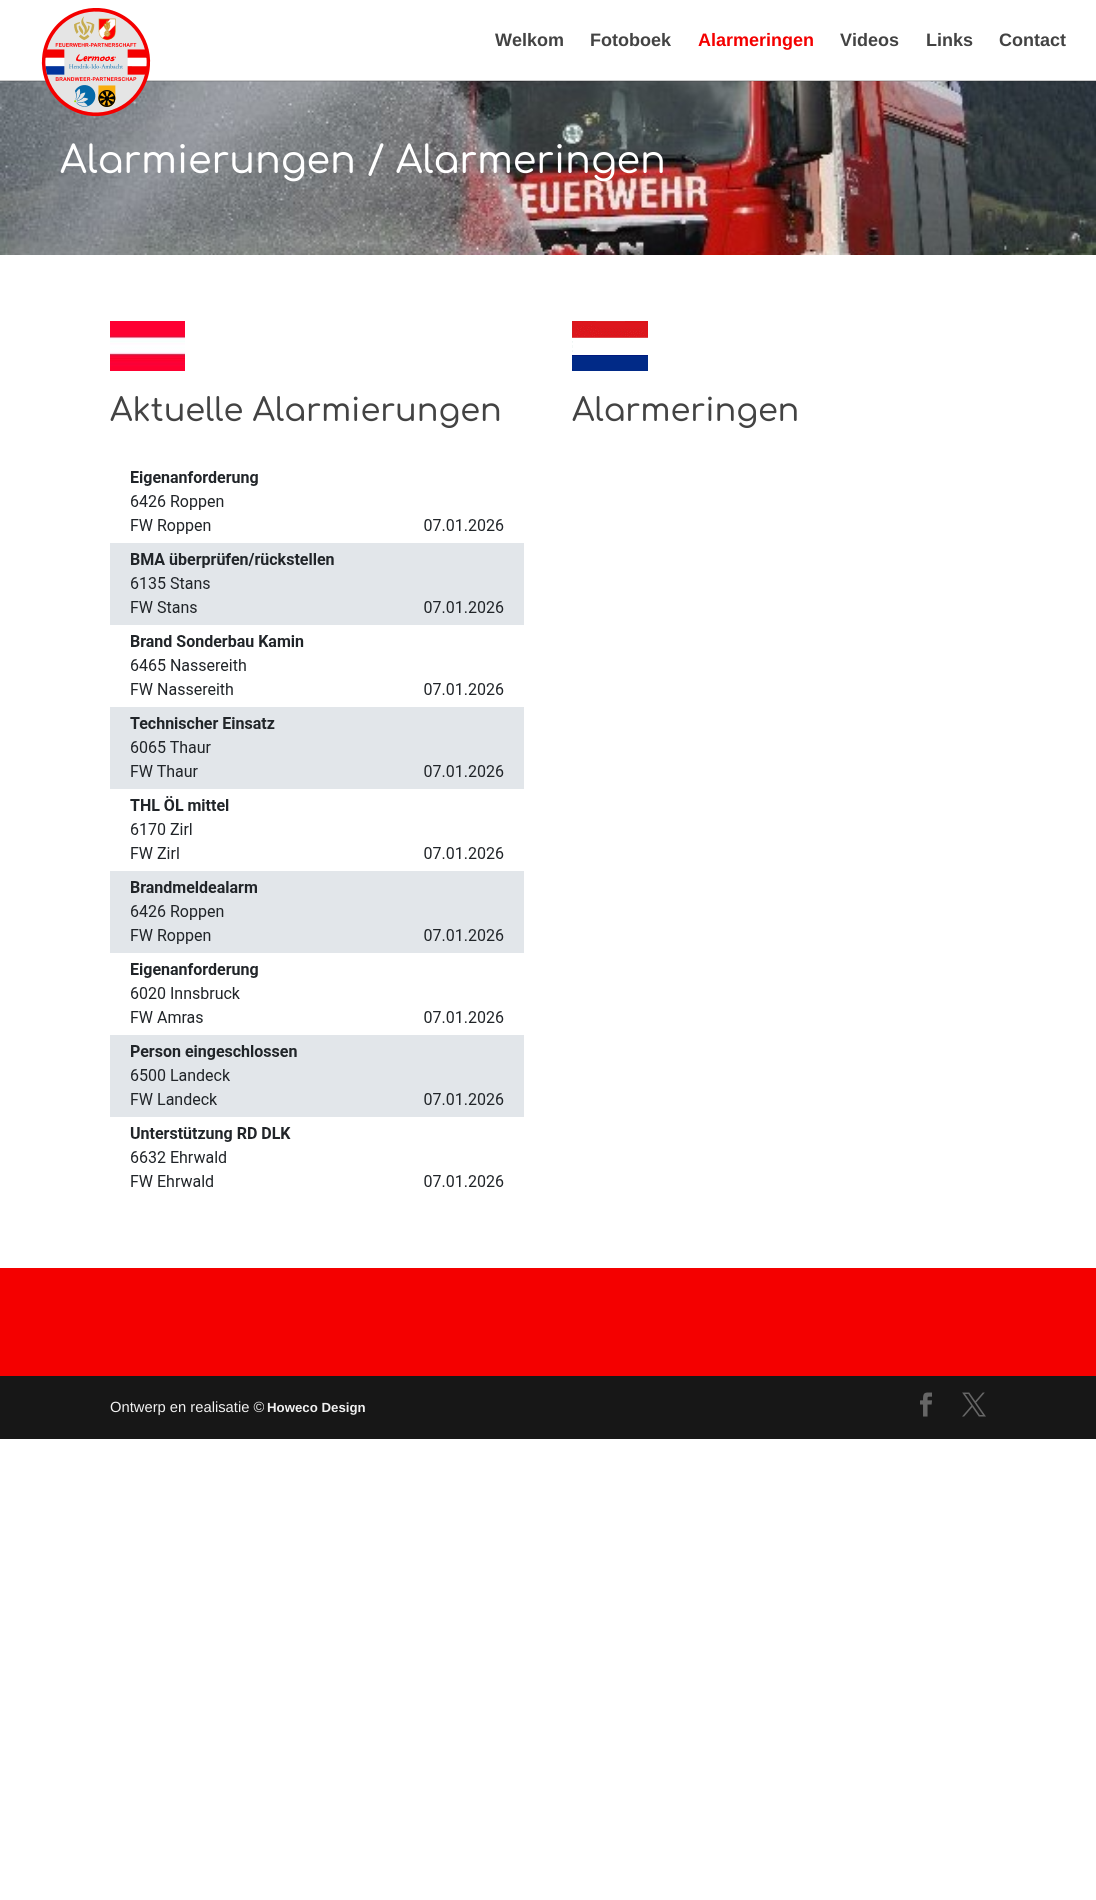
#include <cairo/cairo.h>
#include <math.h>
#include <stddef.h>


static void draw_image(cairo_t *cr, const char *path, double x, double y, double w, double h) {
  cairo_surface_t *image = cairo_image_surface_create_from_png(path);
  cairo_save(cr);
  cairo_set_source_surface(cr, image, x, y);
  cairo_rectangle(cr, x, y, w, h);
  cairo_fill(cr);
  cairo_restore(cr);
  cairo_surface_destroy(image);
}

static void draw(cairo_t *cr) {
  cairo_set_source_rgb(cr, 1, 1, 1);
  cairo_paint(cr);
  draw_image(cr, "images/2.png", 0, 81, 1096, 174);
  cairo_set_source_rgba(cr, 0, 0, 0, 0.1);
  cairo_rectangle(cr, 0, 81, 1096, 1);
  cairo_fill(cr);
  cairo_set_source_rgb(cr, 204 / 255.0, 204 / 255.0, 204 / 255.0);
  cairo_rectangle(cr, 0, 80, 1096, 1);
  cairo_fill(cr);
  draw_image(cr, "images/1.png", 41, 8, 110, 109);
  draw_image(cr, "images/3.png", 110, 321, 75, 50);
  draw_image(cr, "images/4.png", 110, 471, 414, 716);
  draw_image(cr, "images/5.png", 572, 321, 76, 50);
  cairo_set_source_rgb(cr, 244 / 255.0, 0, 0);
  cairo_rectangle(cr, 0, 1268, 1096, 108);
  cairo_fill(cr);
  cairo_set_source_rgb(cr, 23 / 255.0, 23 / 255.0, 23 / 255.0);
  cairo_rectangle(cr, 0, 1376, 1096, 63);
  cairo_fill(cr);
  draw_image(cr, "images/6.png", 920, 1392, 12, 25);
  draw_image(cr, "images/7.png", 962, 1392, 24, 25);
  cairo_select_font_face(cr, "Liberation Sans", CAIRO_FONT_SLANT_NORMAL, CAIRO_FONT_WEIGHT_BOLD);
  cairo_set_font_size(cr, 18);
  cairo_set_source_rgb(cr, 67 / 255.0, 67 / 255.0, 67 / 255.0);
  cairo_move_to(cr, 495, 46);
  cairo_show_text(cr, "Welkom");
  cairo_move_to(cr, 590, 46);
  cairo_show_text(cr, "Fotoboek");
  cairo_set_source_rgb(cr, 244 / 255.0, 0, 0);
  cairo_move_to(cr, 698, 46);
  cairo_show_text(cr, "Alarmeringen");
  cairo_set_source_rgb(cr, 67 / 255.0, 67 / 255.0, 67 / 255.0);
  cairo_move_to(cr, 840, 46);
  cairo_show_text(cr, "Videos");
  cairo_move_to(cr, 926, 46);
  cairo_show_text(cr, "Links");
  cairo_move_to(cr, 999, 46);
  cairo_show_text(cr, "Contact");
  cairo_select_font_face(cr, "Comfortaa Medium", CAIRO_FONT_SLANT_NORMAL, CAIRO_FONT_WEIGHT_NORMAL);
  cairo_set_font_size(cr, 38);
  cairo_set_source_rgb(cr, 1, 1, 1);
  cairo_move_to(cr, 60, 173);
  cairo_show_text(cr, "Alarmierungen / Alarmeringen");
  cairo_set_font_size(cr, 32);
  cairo_set_source_rgb(cr, 67 / 255.0, 67 / 255.0, 67 / 255.0);
  cairo_move_to(cr, 110, 421);
  cairo_show_text(cr, "Aktuelle Alarmierungen");
  cairo_move_to(cr, 572, 421);
  cairo_show_text(cr, "Alarmeringen");
  cairo_select_font_face(cr, "Liberation Sans", CAIRO_FONT_SLANT_NORMAL, CAIRO_FONT_WEIGHT_NORMAL);
  cairo_set_font_size(cr, 14.75);
  cairo_set_source_rgb(cr, 241 / 255.0, 241 / 255.0, 241 / 255.0);
  cairo_move_to(cr, 110, 1412);
  cairo_show_text(cr, "Ontwerp en realisatie ©");
  cairo_select_font_face(cr, "Liberation Sans", CAIRO_FONT_SLANT_NORMAL, CAIRO_FONT_WEIGHT_BOLD);
  cairo_set_font_size(cr, 13.25);
  cairo_move_to(cr, 267, 1412);
  cairo_show_text(cr, "Howeco Design");
}

int main(void) {
  cairo_surface_t *surface = cairo_image_surface_create(CAIRO_FORMAT_RGB24, 1096, 1900);
  cairo_t *cr = cairo_create(surface);
  cairo_font_options_t *options = cairo_font_options_create();
  cairo_font_options_set_hint_metrics(options, CAIRO_HINT_METRICS_OFF);
  cairo_font_options_set_hint_style(options, CAIRO_HINT_STYLE_NONE);
  cairo_set_font_options(cr, options);
  cairo_set_miter_limit(cr, 4);
  draw(cr);
  cairo_surface_write_to_png(surface, "out.png");
  cairo_font_options_destroy(options);
  cairo_destroy(cr);
  cairo_surface_destroy(surface);
  return 0;
}
